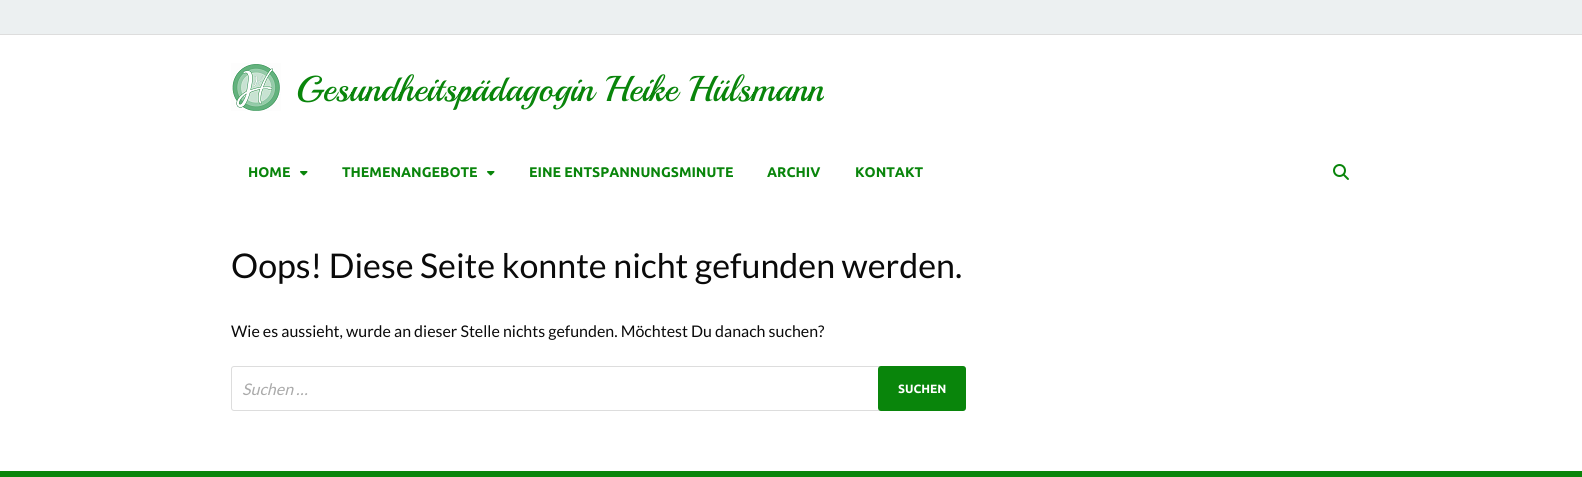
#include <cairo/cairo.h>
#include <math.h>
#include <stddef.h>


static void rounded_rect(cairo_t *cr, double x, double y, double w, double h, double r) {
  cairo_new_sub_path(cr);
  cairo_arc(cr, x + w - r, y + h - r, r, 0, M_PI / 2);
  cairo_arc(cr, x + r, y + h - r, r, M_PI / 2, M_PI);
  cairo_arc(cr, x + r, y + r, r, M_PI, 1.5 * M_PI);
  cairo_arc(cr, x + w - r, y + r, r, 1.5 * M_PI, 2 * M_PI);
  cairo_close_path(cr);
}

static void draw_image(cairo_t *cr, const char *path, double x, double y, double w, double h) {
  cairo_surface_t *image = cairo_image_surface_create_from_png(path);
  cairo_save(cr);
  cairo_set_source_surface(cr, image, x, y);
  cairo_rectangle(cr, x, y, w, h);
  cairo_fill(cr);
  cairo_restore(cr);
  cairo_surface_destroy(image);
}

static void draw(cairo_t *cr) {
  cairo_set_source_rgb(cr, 1, 1, 1);
  cairo_paint(cr);
  cairo_set_source_rgb(cr, 236 / 255.0, 240 / 255.0, 241 / 255.0);
  cairo_rectangle(cr, 0, 0, 1582, 34);
  cairo_fill(cr);
  cairo_set_source_rgb(cr, 221 / 255.0, 221 / 255.0, 221 / 255.0);
  cairo_rectangle(cr, 0, 34, 1582, 1);
  cairo_fill(cr);
  draw_image(cr, "images/1.png", 231, 63, 50, 48);
  draw_image(cr, "images/2.png", 300, 171, 8, 5);
  draw_image(cr, "images/2.png", 487, 171, 8, 5);
  draw_image(cr, "images/3.png", 1333, 164, 16, 16);
  rounded_rect(cr, 231.5, 366.5, 734, 44, 2.5);
  cairo_set_line_width(cr, 1);
  cairo_stroke(cr);
  cairo_set_source_rgb(cr, 9 / 255.0, 133 / 255.0, 11 / 255.0);
  rounded_rect(cr, 878, 366, 88, 45, 3);
  cairo_fill(cr);
  cairo_rectangle(cr, 0, 471, 1582, 6);
  cairo_fill(cr);
  cairo_save(cr);
  cairo_rectangle(cr, 296, 63, 528, 54);
  cairo_clip(cr);
  cairo_select_font_face(cr, "Playball", CAIRO_FONT_SLANT_NORMAL, CAIRO_FONT_WEIGHT_NORMAL);
  cairo_set_font_size(cr, 36);
  cairo_move_to(cr, 296, 101);
  cairo_show_text(cr, "Gesundheitspädagogin Heike Hülsmann");
  cairo_restore(cr);
  cairo_select_font_face(cr, "Ubuntu", CAIRO_FONT_SLANT_NORMAL, CAIRO_FONT_WEIGHT_BOLD);
  cairo_set_font_size(cr, 14);
  cairo_move_to(cr, 248, 177);
  cairo_show_text(cr, "HOME");
  cairo_move_to(cr, 342, 177);
  cairo_show_text(cr, "THEMENANGEBOTE");
  cairo_move_to(cr, 529, 177);
  cairo_show_text(cr, "EINE ENTSPANNUNGSMINUTE");
  cairo_move_to(cr, 767, 177);
  cairo_show_text(cr, "ARCHIV");
  cairo_move_to(cr, 855, 177);
  cairo_show_text(cr, "KONTAKT");
  cairo_select_font_face(cr, "Lato", CAIRO_FONT_SLANT_NORMAL, CAIRO_FONT_WEIGHT_NORMAL);
  cairo_set_font_size(cr, 34);
  cairo_set_source_rgb(cr, 10 / 255.0, 10 / 255.0, 10 / 255.0);
  cairo_move_to(cr, 231, 278);
  cairo_show_text(cr, "Oops! Diese Seite konnte nicht gefunden werden.");
  cairo_set_font_size(cr, 16);
  cairo_move_to(cr, 231, 337);
  cairo_show_text(cr, "Wie es aussieht, wurde an dieser Stelle nichts gefunden. Möchtest Du danach suchen?");
  cairo_select_font_face(cr, "Lato", CAIRO_FONT_SLANT_ITALIC, CAIRO_FONT_WEIGHT_NORMAL);
  cairo_set_source_rgb(cr, 170 / 255.0, 170 / 255.0, 170 / 255.0);
  cairo_move_to(cr, 242, 395);
  cairo_show_text(cr, "Suchen …");
  cairo_select_font_face(cr, "Ubuntu", CAIRO_FONT_SLANT_NORMAL, CAIRO_FONT_WEIGHT_BOLD);
  cairo_set_font_size(cr, 12);
  cairo_set_source_rgb(cr, 1, 1, 1);
  cairo_move_to(cr, 898, 393);
  cairo_show_text(cr, "SUCHEN");
}

int main(void) {
  cairo_surface_t *surface = cairo_image_surface_create(CAIRO_FORMAT_RGB24, 1582, 477);
  cairo_t *cr = cairo_create(surface);
  cairo_font_options_t *options = cairo_font_options_create();
  cairo_font_options_set_hint_metrics(options, CAIRO_HINT_METRICS_OFF);
  cairo_font_options_set_hint_style(options, CAIRO_HINT_STYLE_NONE);
  cairo_set_font_options(cr, options);
  cairo_set_miter_limit(cr, 4);
  draw(cr);
  cairo_surface_write_to_png(surface, "out.png");
  cairo_font_options_destroy(options);
  cairo_destroy(cr);
  cairo_surface_destroy(surface);
  return 0;
}
